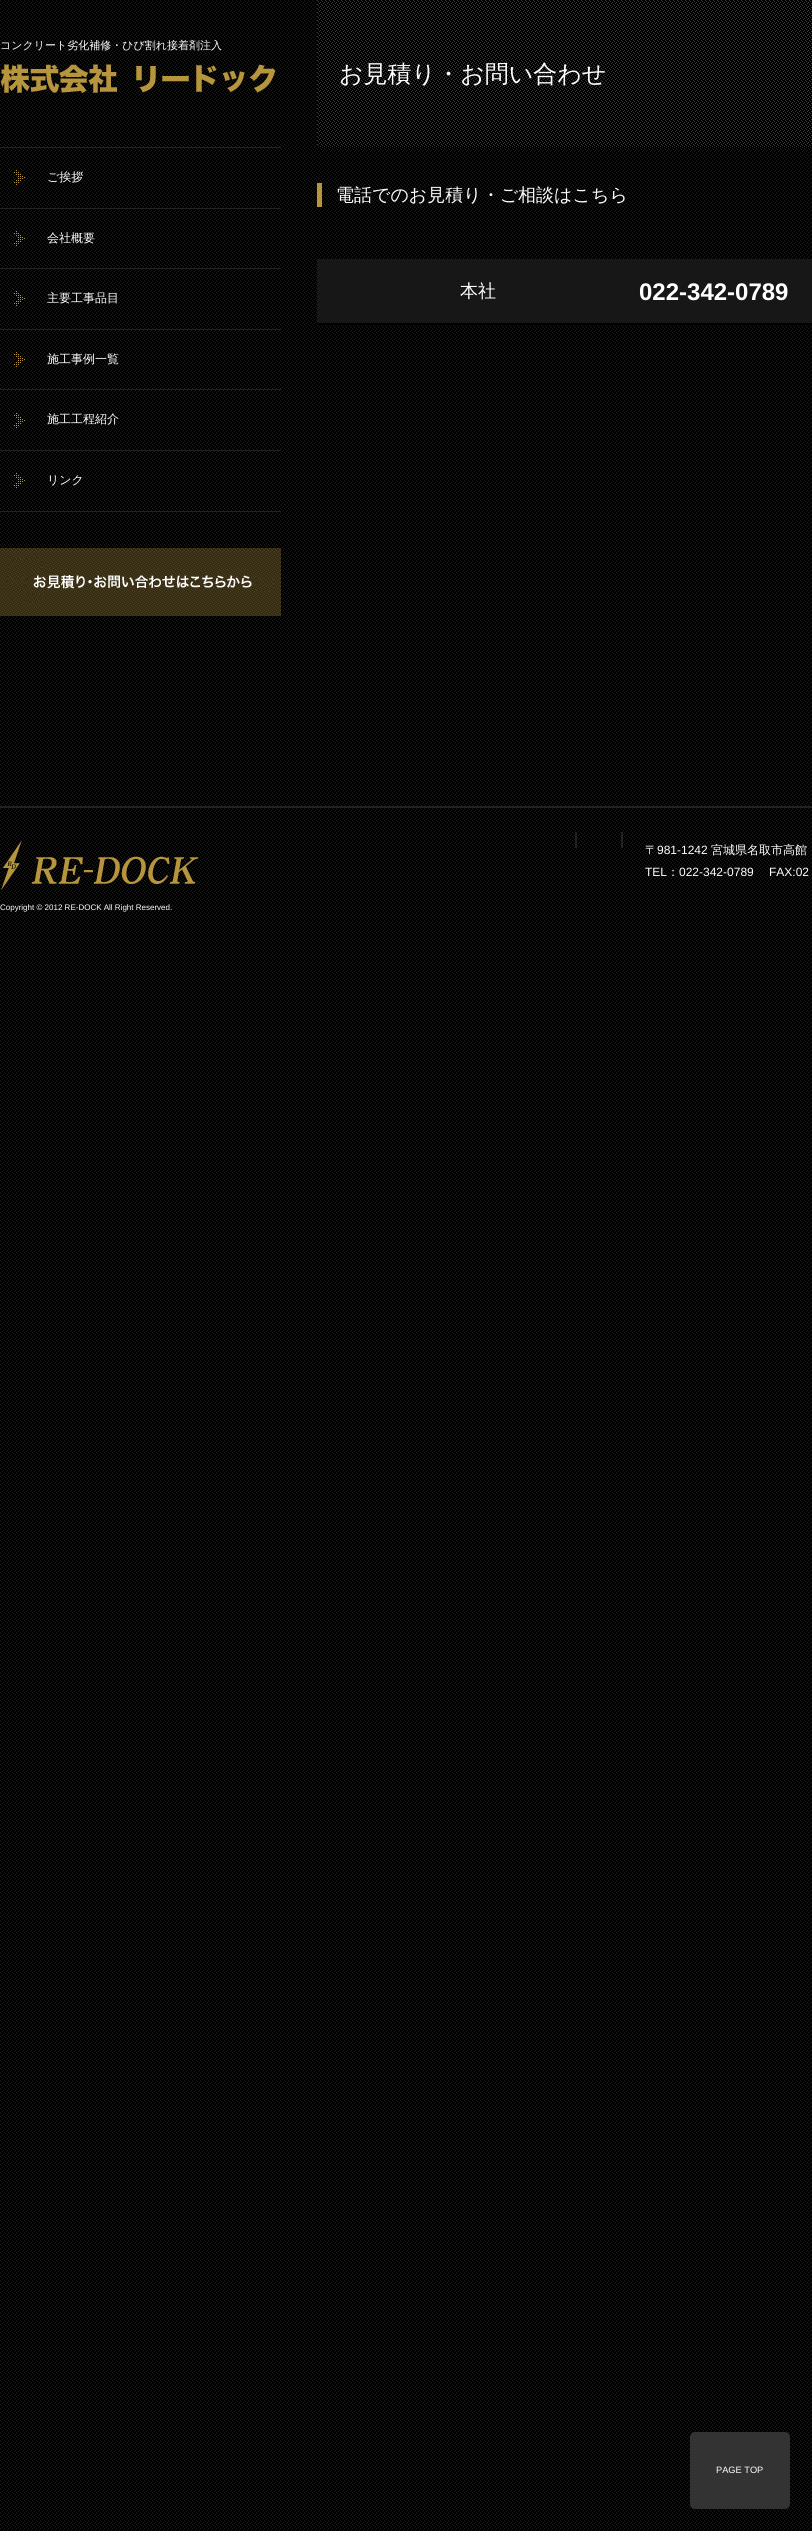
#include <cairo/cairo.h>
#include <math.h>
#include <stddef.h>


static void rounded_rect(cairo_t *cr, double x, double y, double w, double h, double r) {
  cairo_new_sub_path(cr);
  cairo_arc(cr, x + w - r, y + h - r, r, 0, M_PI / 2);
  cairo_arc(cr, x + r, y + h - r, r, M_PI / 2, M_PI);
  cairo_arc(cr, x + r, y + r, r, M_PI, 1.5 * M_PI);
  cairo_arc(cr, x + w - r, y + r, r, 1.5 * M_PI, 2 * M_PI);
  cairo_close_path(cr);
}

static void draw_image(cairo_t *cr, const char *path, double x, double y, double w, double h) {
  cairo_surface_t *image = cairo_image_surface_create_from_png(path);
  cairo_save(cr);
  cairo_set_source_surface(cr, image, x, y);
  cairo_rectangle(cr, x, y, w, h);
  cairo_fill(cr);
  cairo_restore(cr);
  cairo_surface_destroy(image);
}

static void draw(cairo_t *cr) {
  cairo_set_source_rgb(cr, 1, 1, 1);
  cairo_paint(cr);
  draw_image(cr, "images/1.png", 0, 0, 812, 2531);
  draw_image(cr, "images/2.png", 0, 64, 276, 29);
  cairo_set_source_rgb(cr, 34 / 255.0, 34 / 255.0, 34 / 255.0);
  cairo_rectangle(cr, 0, 147, 281, 1);
  cairo_fill(cr);
  draw_image(cr, "images/3.png", 14, 170, 11, 15);
  cairo_rectangle(cr, 0, 208, 281, 1);
  cairo_fill(cr);
  draw_image(cr, "images/4.png", 14, 231, 11, 15);
  cairo_rectangle(cr, 0, 268, 281, 1);
  cairo_fill(cr);
  draw_image(cr, "images/4.png", 14, 291, 11, 15);
  cairo_rectangle(cr, 0, 329, 281, 1);
  cairo_fill(cr);
  draw_image(cr, "images/5.png", 14, 352, 11, 15);
  cairo_rectangle(cr, 0, 389, 281, 1);
  cairo_fill(cr);
  draw_image(cr, "images/6.png", 14, 413, 11, 15);
  cairo_rectangle(cr, 0, 450, 281, 1);
  cairo_fill(cr);
  draw_image(cr, "images/6.png", 14, 473, 11, 15);
  cairo_rectangle(cr, 0, 511, 281, 1);
  cairo_fill(cr);
  draw_image(cr, "images/7.png", 0, 548, 281, 68);
  draw_image(cr, "images/8.png", 317, 0, 495, 147);
  cairo_set_source_rgb(cr, 182 / 255.0, 149 / 255.0, 61 / 255.0);
  cairo_rectangle(cr, 317, 183, 5, 24);
  cairo_fill(cr);
  cairo_set_source_rgb(cr, 23 / 255.0, 23 / 255.0, 23 / 255.0);
  cairo_rectangle(cr, 317, 259, 495, 64);
  cairo_fill(cr);
  cairo_set_source_rgb(cr, 0, 0, 0);
  cairo_rectangle(cr, 316, 323, 496, 2);
  cairo_fill(cr);
  cairo_set_source_rgb(cr, 34 / 255.0, 34 / 255.0, 34 / 255.0);
  cairo_rectangle(cr, 0, 806, 812, 2);
  cairo_fill(cr);
  cairo_rectangle(cr, 621, 832, 2, 16);
  cairo_fill(cr);
  cairo_rectangle(cr, 575, 832, 2, 16);
  cairo_fill(cr);
  draw_image(cr, "images/9.png", 1, 840, 198, 51);
  cairo_set_source_rgb(cr, 51 / 255.0, 51 / 255.0, 51 / 255.0);
  rounded_rect(cr, 690, 2432, 100, 77, 5);
  cairo_fill(cr);
  cairo_select_font_face(cr, "WenQuanYi Zen Hei Medium", CAIRO_FONT_SLANT_NORMAL, CAIRO_FONT_WEIGHT_NORMAL);
  cairo_set_font_size(cr, 11);
  cairo_set_source_rgb(cr, 1, 1, 1);
  cairo_move_to(cr, 0, 49);
  cairo_show_text(cr, "コンクリート劣化補修・ひび割れ接着剤注入");
  cairo_set_font_size(cr, 12);
  cairo_move_to(cr, 47, 181);
  cairo_show_text(cr, "ご挨拶");
  cairo_move_to(cr, 47, 242);
  cairo_show_text(cr, "会社概要");
  cairo_move_to(cr, 47, 302);
  cairo_show_text(cr, "主要工事品目");
  cairo_move_to(cr, 47, 363);
  cairo_show_text(cr, "施工事例一覧");
  cairo_move_to(cr, 47, 423);
  cairo_show_text(cr, "施工工程紹介");
  cairo_move_to(cr, 47, 484);
  cairo_show_text(cr, "リンク");
  cairo_set_font_size(cr, 24);
  cairo_move_to(cr, 339, 82);
  cairo_show_text(cr, "お見積り・お問い合わせ");
  cairo_set_font_size(cr, 18);
  cairo_move_to(cr, 336, 201);
  cairo_show_text(cr, "電話でのお見積り・ご相談はこちら");
  cairo_move_to(cr, 460, 297);
  cairo_show_text(cr, "本社");
  cairo_select_font_face(cr, "Liberation Sans", CAIRO_FONT_SLANT_NORMAL, CAIRO_FONT_WEIGHT_BOLD);
  cairo_set_font_size(cr, 24);
  cairo_move_to(cr, 639, 300);
  cairo_show_text(cr, "022-342-0789");
  cairo_select_font_face(cr, "WenQuanYi Zen Hei Medium", CAIRO_FONT_SLANT_NORMAL, CAIRO_FONT_WEIGHT_NORMAL);
  cairo_set_font_size(cr, 12);
  cairo_move_to(cr, 645, 854);
  cairo_show_text(cr, "〒");
  cairo_select_font_face(cr, "Liberation Sans", CAIRO_FONT_SLANT_NORMAL, CAIRO_FONT_WEIGHT_NORMAL);
  cairo_move_to(cr, 657, 854);
  cairo_show_text(cr, "981-1242");
  cairo_select_font_face(cr, "WenQuanYi Zen Hei Medium", CAIRO_FONT_SLANT_NORMAL, CAIRO_FONT_WEIGHT_NORMAL);
  cairo_move_to(cr, 711, 854);
  cairo_show_text(cr, "宮城県名取市高館");
  cairo_select_font_face(cr, "Liberation Sans", CAIRO_FONT_SLANT_NORMAL, CAIRO_FONT_WEIGHT_NORMAL);
  cairo_move_to(cr, 645, 876);
  cairo_show_text(cr, "TEL");
  cairo_select_font_face(cr, "WenQuanYi Zen Hei Medium", CAIRO_FONT_SLANT_NORMAL, CAIRO_FONT_WEIGHT_NORMAL);
  cairo_move_to(cr, 667, 876);
  cairo_show_text(cr, "：");
  cairo_select_font_face(cr, "Liberation Sans", CAIRO_FONT_SLANT_NORMAL, CAIRO_FONT_WEIGHT_NORMAL);
  cairo_move_to(cr, 679, 876);
  cairo_show_text(cr, "022-342-0789");
  cairo_move_to(cr, 769, 876);
  cairo_show_text(cr, "FAX:02");
  cairo_set_font_size(cr, 8);
  cairo_move_to(cr, 0, 910);
  cairo_show_text(cr, "Copyright © 2012 RE-DOCK All Right Reserved.");
  cairo_set_font_size(cr, 9.25);
  cairo_move_to(cr, 716, 2473);
  cairo_show_text(cr, "PAGE TOP");
}

int main(void) {
  cairo_surface_t *surface = cairo_image_surface_create(CAIRO_FORMAT_RGB24, 812, 2531);
  cairo_t *cr = cairo_create(surface);
  cairo_font_options_t *options = cairo_font_options_create();
  cairo_font_options_set_hint_metrics(options, CAIRO_HINT_METRICS_OFF);
  cairo_font_options_set_hint_style(options, CAIRO_HINT_STYLE_NONE);
  cairo_set_font_options(cr, options);
  cairo_set_miter_limit(cr, 4);
  draw(cr);
  cairo_surface_write_to_png(surface, "out.png");
  cairo_font_options_destroy(options);
  cairo_destroy(cr);
  cairo_surface_destroy(surface);
  return 0;
}
